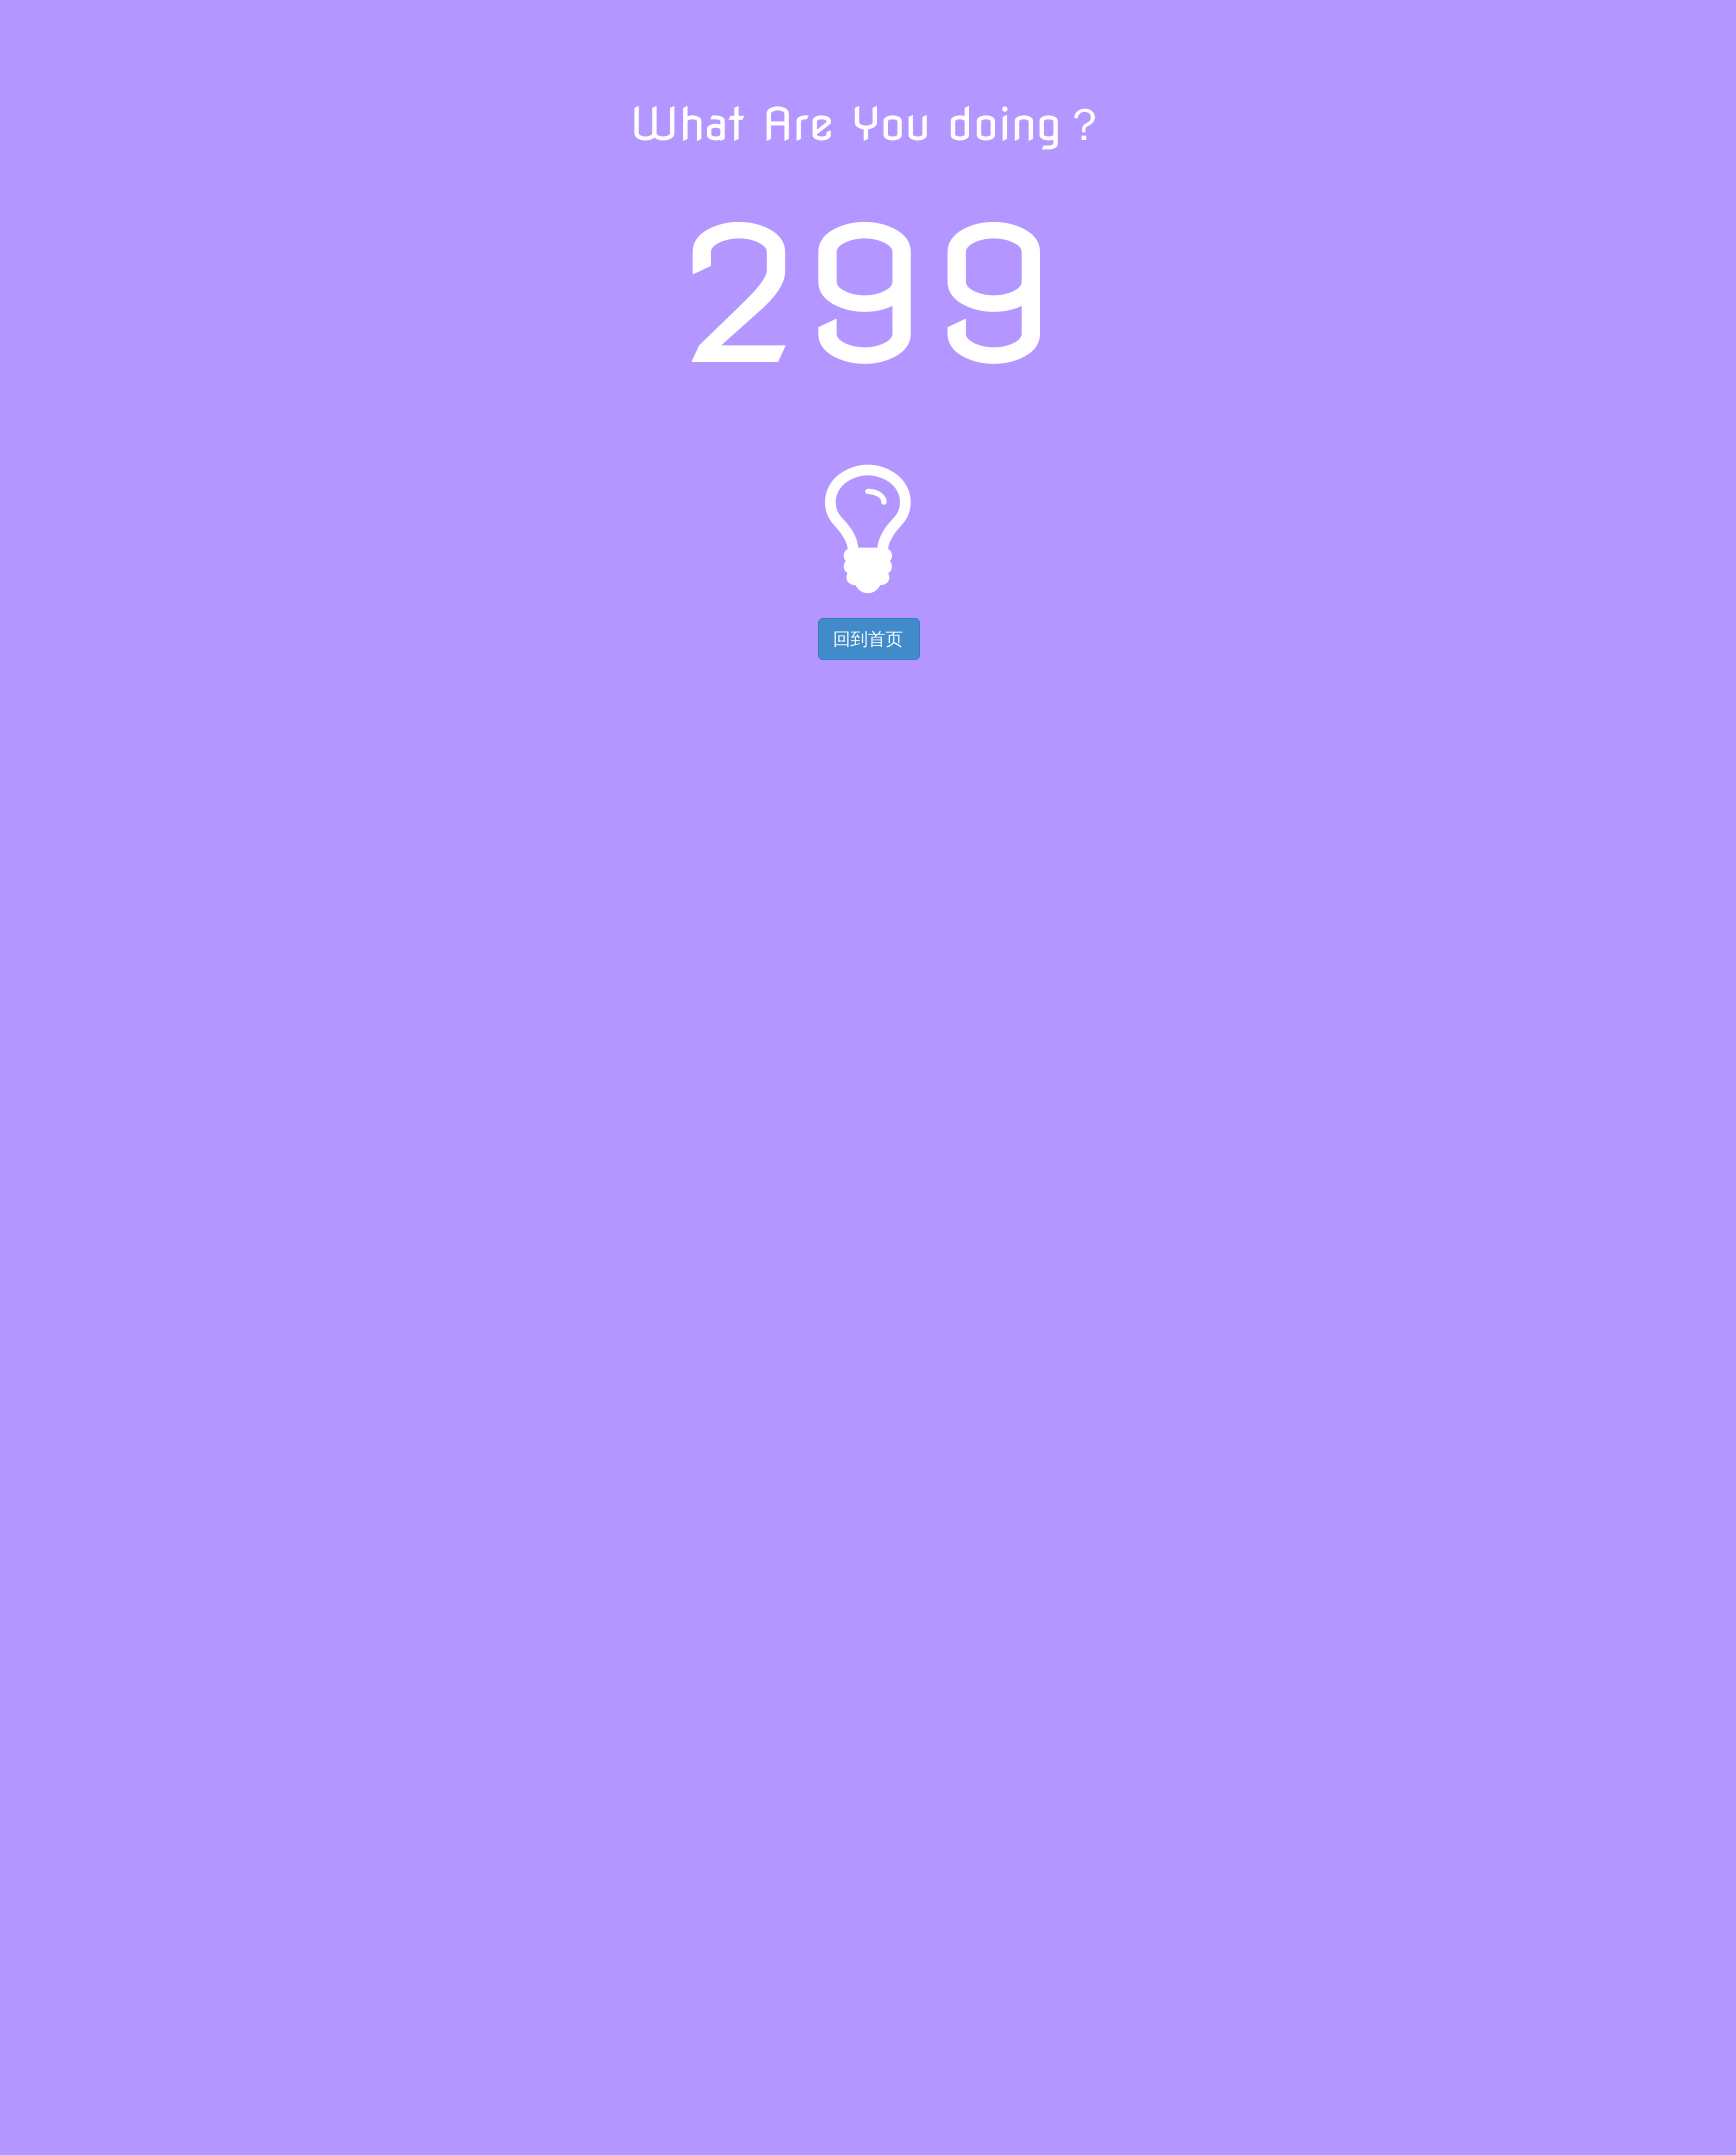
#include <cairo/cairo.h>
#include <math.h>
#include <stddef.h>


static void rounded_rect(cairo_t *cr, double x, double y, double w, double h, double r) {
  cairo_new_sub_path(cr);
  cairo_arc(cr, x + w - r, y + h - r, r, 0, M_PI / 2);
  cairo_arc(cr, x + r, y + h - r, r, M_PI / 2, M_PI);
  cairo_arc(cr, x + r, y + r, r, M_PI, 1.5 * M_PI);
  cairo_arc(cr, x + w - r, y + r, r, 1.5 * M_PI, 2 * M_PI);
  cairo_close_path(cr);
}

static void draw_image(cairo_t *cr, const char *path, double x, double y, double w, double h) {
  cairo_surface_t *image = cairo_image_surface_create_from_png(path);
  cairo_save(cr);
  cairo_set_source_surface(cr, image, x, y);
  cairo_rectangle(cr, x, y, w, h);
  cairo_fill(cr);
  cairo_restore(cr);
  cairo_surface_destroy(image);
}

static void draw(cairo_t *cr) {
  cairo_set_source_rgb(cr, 179 / 255.0, 150 / 255.0, 1);
  cairo_paint(cr);
  draw_image(cr, "images/1.png", 825, 464, 86, 130);
  cairo_set_source_rgb(cr, 66 / 255.0, 139 / 255.0, 202 / 255.0);
  rounded_rect(cr, 818.5, 618.5, 101, 41, 4.5);
  cairo_fill_preserve(cr);
  cairo_set_source_rgb(cr, 53 / 255.0, 126 / 255.0, 189 / 255.0);
  cairo_set_line_width(cr, 1);
  cairo_stroke(cr);
  cairo_select_font_face(cr, "Nova Flat", CAIRO_FONT_SLANT_NORMAL, CAIRO_FONT_WEIGHT_NORMAL);
  cairo_set_font_size(cr, 45);
  cairo_set_source_rgb(cr, 1, 1, 1);
  cairo_move_to(cr, 630, 140);
  cairo_show_text(cr, "What Are You doing");
  cairo_select_font_face(cr, "WenQuanYi Zen Hei Medium", CAIRO_FONT_SLANT_NORMAL, CAIRO_FONT_WEIGHT_NORMAL);
  cairo_move_to(cr, 1062, 140);
  cairo_show_text(cr, "？");
  cairo_select_font_face(cr, "Nova Flat", CAIRO_FONT_SLANT_NORMAL, CAIRO_FONT_WEIGHT_NORMAL);
  cairo_set_font_size(cr, 187.5);
  cairo_move_to(cr, 678, 362);
  cairo_show_text(cr, "299");
  cairo_select_font_face(cr, "WenQuanYi Zen Hei Medium", CAIRO_FONT_SLANT_NORMAL, CAIRO_FONT_WEIGHT_NORMAL);
  cairo_set_font_size(cr, 17.5);
  cairo_move_to(cr, 833, 645);
  cairo_show_text(cr, "回到首页");
}

int main(void) {
  cairo_surface_t *surface = cairo_image_surface_create(CAIRO_FORMAT_RGB24, 1736, 2155);
  cairo_t *cr = cairo_create(surface);
  cairo_font_options_t *options = cairo_font_options_create();
  cairo_font_options_set_hint_metrics(options, CAIRO_HINT_METRICS_OFF);
  cairo_font_options_set_hint_style(options, CAIRO_HINT_STYLE_NONE);
  cairo_set_font_options(cr, options);
  cairo_set_miter_limit(cr, 4);
  draw(cr);
  cairo_surface_write_to_png(surface, "out.png");
  cairo_font_options_destroy(options);
  cairo_destroy(cr);
  cairo_surface_destroy(surface);
  return 0;
}
